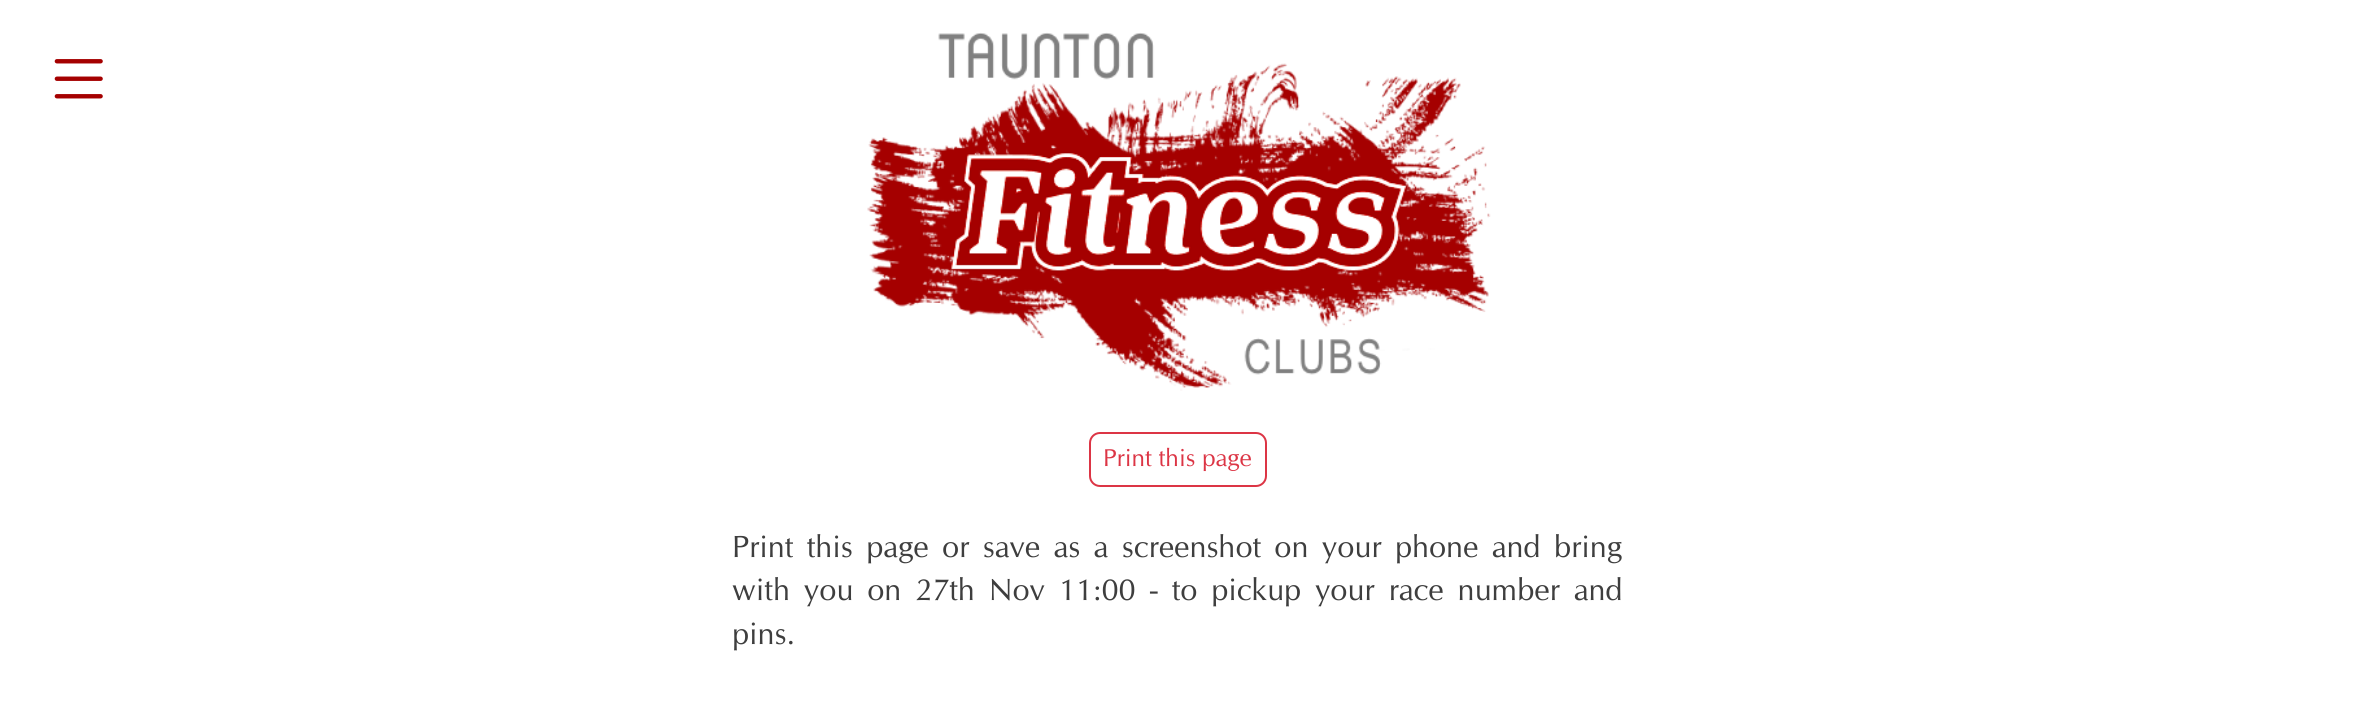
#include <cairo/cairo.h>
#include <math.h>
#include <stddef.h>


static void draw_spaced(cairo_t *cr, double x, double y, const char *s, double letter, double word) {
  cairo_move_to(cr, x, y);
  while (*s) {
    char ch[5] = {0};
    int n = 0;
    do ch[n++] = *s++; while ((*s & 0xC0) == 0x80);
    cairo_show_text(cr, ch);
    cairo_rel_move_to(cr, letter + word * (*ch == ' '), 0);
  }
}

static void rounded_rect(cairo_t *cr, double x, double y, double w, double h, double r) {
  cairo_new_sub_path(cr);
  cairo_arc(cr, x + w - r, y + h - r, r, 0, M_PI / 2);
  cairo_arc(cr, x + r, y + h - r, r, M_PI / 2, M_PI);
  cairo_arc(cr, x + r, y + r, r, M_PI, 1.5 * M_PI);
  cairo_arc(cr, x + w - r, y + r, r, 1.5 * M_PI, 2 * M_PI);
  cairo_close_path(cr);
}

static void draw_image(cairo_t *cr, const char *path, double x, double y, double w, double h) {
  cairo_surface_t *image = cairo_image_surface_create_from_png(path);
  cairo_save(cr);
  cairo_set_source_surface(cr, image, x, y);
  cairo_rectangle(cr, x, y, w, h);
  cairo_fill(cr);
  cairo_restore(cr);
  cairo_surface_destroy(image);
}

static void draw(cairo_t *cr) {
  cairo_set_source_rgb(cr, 1, 1, 1);
  cairo_paint(cr);
  draw_image(cr, "images/1.png", 54, 59, 49, 40);
  draw_image(cr, "images/2.png", 867, 32, 624, 359);
  rounded_rect(cr, 1090, 433, 176, 53, 10);
  cairo_set_source_rgb(cr, 220 / 255.0, 53 / 255.0, 69 / 255.0);
  cairo_stroke(cr);
  cairo_select_font_face(cr, "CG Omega", CAIRO_FONT_SLANT_NORMAL, CAIRO_FONT_WEIGHT_NORMAL);
  cairo_set_font_size(cr, 24.5);
  cairo_move_to(cr, 1103, 466);
  cairo_show_text(cr, "Print this page");
  cairo_set_font_size(cr, 30.8);
  cairo_set_source_rgb(cr, 62 / 255.0, 62 / 255.0, 62 / 255.0);
  draw_spaced(cr, 732, 557, "Print this page or save as a screenshot on your phone and bring", 0, 4.9);
  draw_spaced(cr, 732, 600, "with you on 27th Nov 11:00 - to pickup your race number and", 0, 5.4);
  cairo_move_to(cr, 732, 644);
  cairo_show_text(cr, "pins.");
}

int main(void) {
  cairo_surface_t *surface = cairo_image_surface_create(CAIRO_FORMAT_RGB24, 2354, 701);
  cairo_t *cr = cairo_create(surface);
  cairo_font_options_t *options = cairo_font_options_create();
  cairo_font_options_set_hint_metrics(options, CAIRO_HINT_METRICS_OFF);
  cairo_font_options_set_hint_style(options, CAIRO_HINT_STYLE_NONE);
  cairo_set_font_options(cr, options);
  cairo_set_miter_limit(cr, 4);
  draw(cr);
  cairo_surface_write_to_png(surface, "out.png");
  cairo_font_options_destroy(options);
  cairo_destroy(cr);
  cairo_surface_destroy(surface);
  return 0;
}
